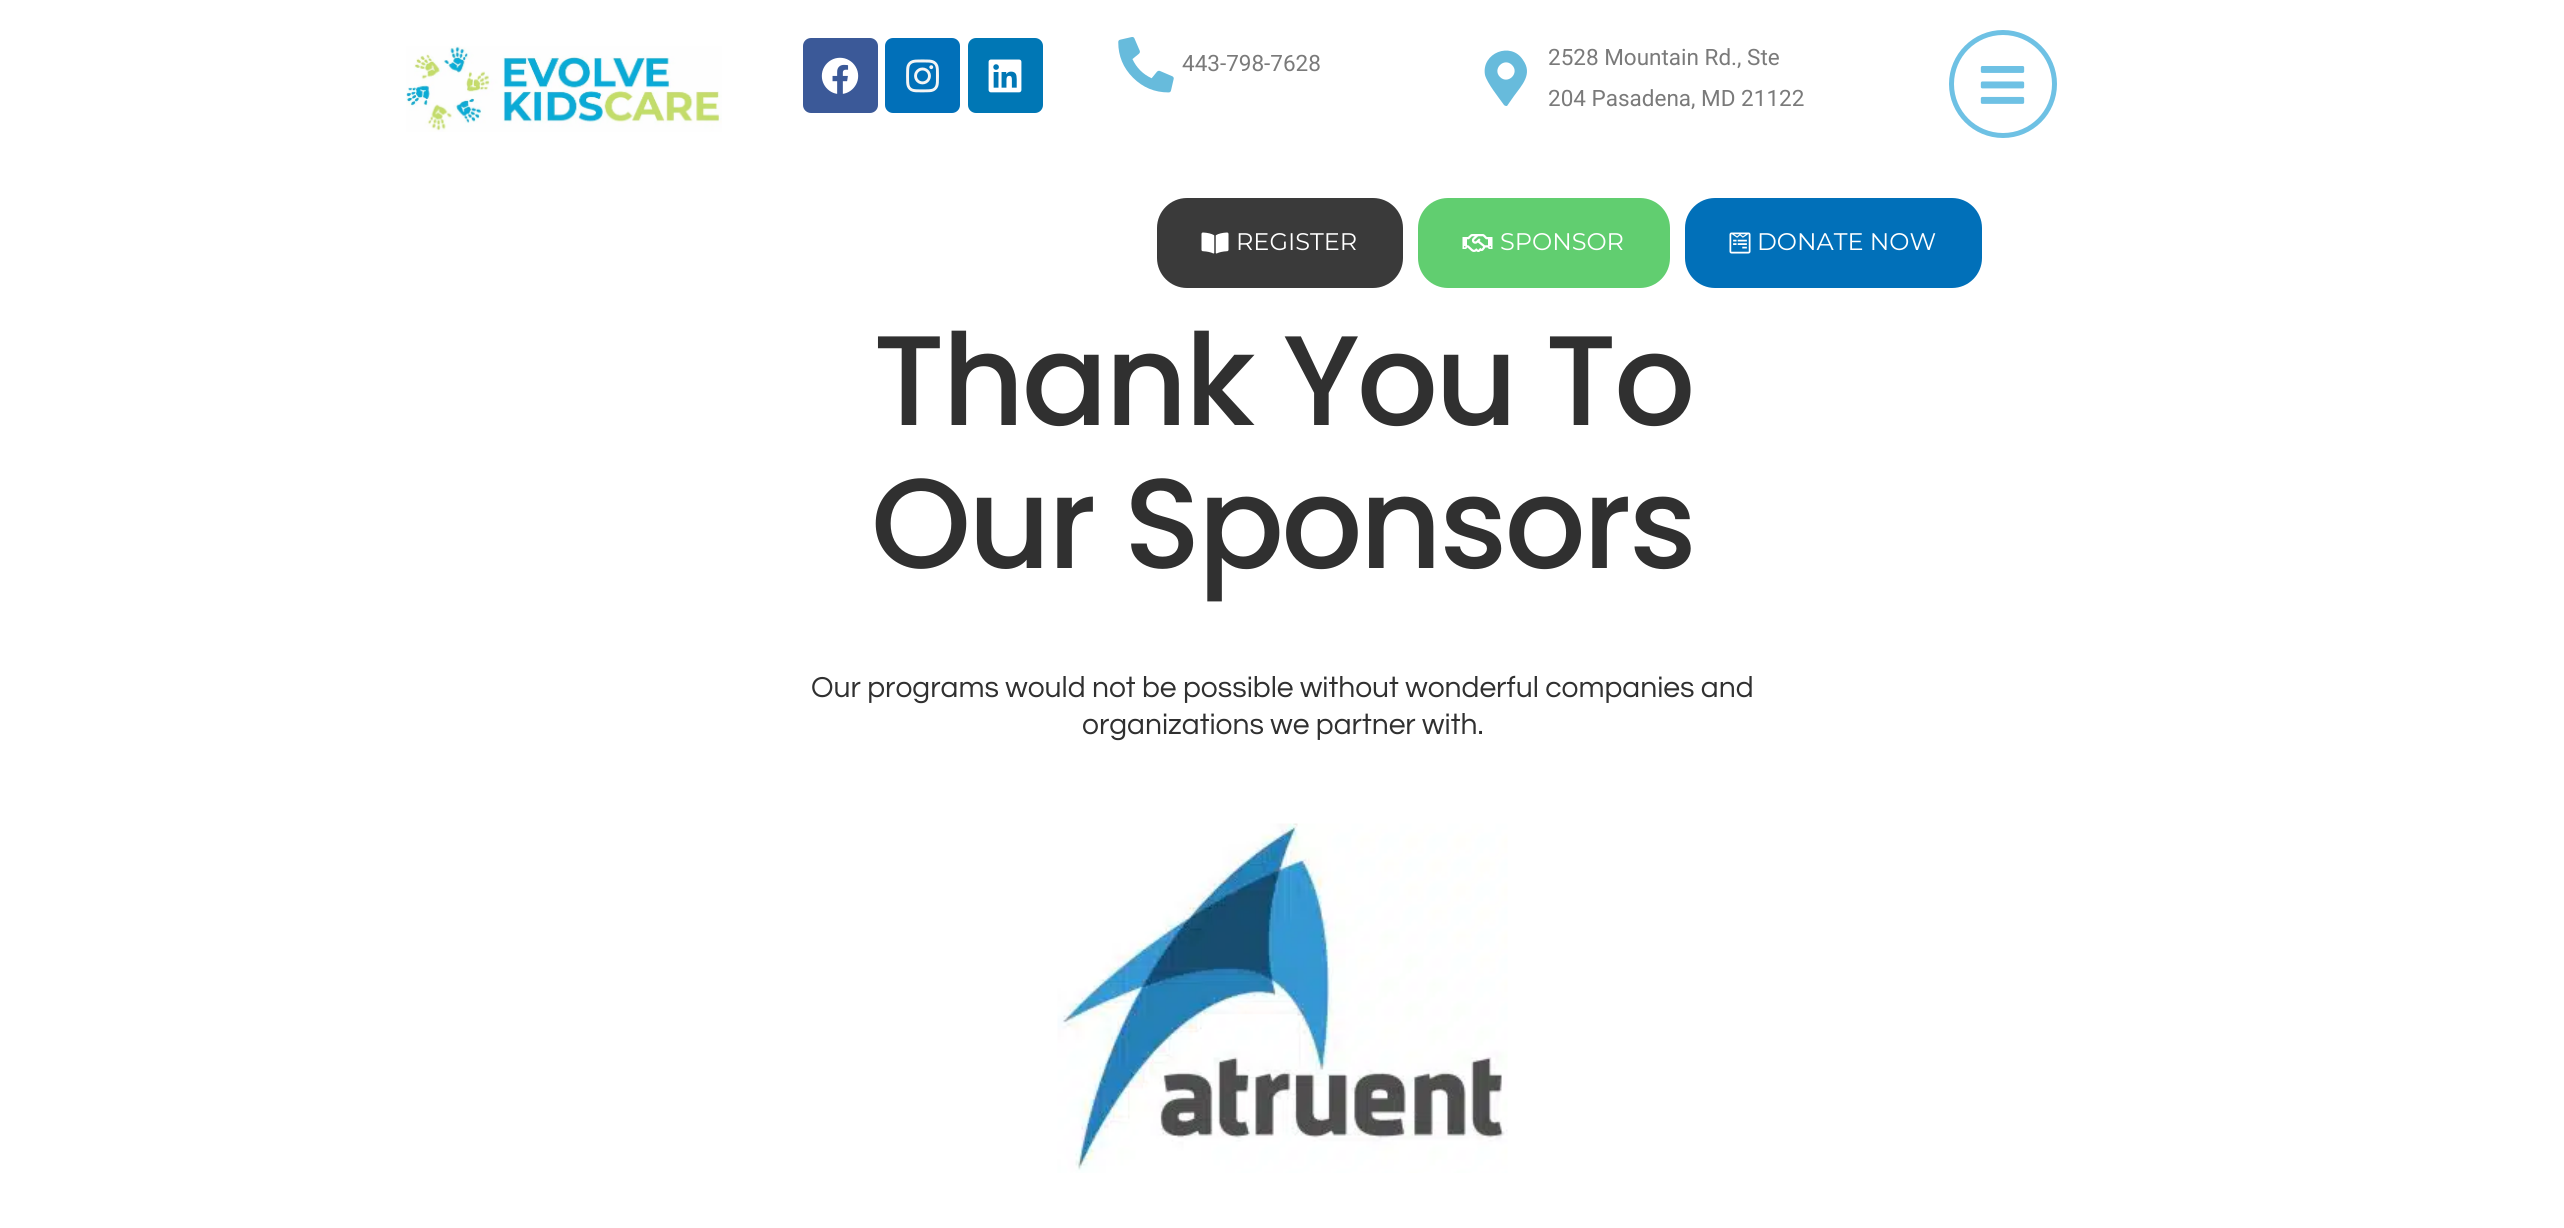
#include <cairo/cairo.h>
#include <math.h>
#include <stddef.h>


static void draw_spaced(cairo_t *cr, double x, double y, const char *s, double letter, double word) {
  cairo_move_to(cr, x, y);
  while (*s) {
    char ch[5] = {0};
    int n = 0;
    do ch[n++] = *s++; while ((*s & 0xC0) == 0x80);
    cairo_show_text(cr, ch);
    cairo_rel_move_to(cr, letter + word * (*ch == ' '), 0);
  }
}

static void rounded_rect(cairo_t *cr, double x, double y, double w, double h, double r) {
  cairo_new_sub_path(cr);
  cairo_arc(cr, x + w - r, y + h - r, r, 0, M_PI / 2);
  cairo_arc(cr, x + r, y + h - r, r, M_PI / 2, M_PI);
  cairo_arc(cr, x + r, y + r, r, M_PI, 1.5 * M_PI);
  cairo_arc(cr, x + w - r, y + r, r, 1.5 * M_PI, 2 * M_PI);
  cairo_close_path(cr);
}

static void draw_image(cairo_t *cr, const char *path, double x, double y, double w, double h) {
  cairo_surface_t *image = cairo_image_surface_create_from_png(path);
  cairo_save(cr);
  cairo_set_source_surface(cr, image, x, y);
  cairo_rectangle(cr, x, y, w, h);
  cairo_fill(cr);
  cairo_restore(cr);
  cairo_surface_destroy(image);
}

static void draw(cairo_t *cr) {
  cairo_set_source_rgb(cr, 1, 1, 1);
  cairo_paint(cr);
  draw_image(cr, "images/1.png", 406, 46, 316, 86);
  cairo_set_source_rgb(cr, 59 / 255.0, 89 / 255.0, 152 / 255.0);
  rounded_rect(cr, 803, 38, 75, 75, 8);
  cairo_fill(cr);
  draw_image(cr, "images/2.png", 821, 57, 38, 37);
  cairo_set_source_rgb(cr, 1 / 255.0, 112 / 255.0, 185 / 255.0);
  rounded_rect(cr, 885, 38, 75, 75, 8);
  cairo_fill(cr);
  draw_image(cr, "images/3.png", 906, 59, 33, 34);
  cairo_set_source_rgb(cr, 0, 119 / 255.0, 181 / 255.0);
  rounded_rect(cr, 968, 38, 75, 75, 8);
  cairo_fill(cr);
  draw_image(cr, "images/4.png", 988, 59, 34, 34);
  draw_image(cr, "images/5.png", 1118, 37, 56, 56);
  cairo_set_source_rgb(cr, 103 / 255.0, 187 / 255.0, 220 / 255.0);
  cairo_new_path(cr);
  cairo_move_to(cr, 1504, 105);
  cairo_curve_to(cr, 1499, 98, 1487, 83, 1485, 75);
  cairo_curve_to(cr, 1481, 53, 1511, 41, 1523, 60);
  cairo_curve_to(cr, 1533, 74, 1522, 85, 1514, 96);
  cairo_line_to(cr, 1507, 106);
  cairo_curve_to(cr, 1506, 106, 1505, 106, 1504, 105);
  cairo_close_path(cr);
  cairo_move_to(cr, 1500, 77);
  cairo_curve_to(cr, 1508, 85, 1520, 73, 1512, 65);
  cairo_curve_to(cr, 1504, 57, 1492, 69, 1500, 77);
  cairo_close_path(cr);
  cairo_fill(cr);
  cairo_arc(cr, 2003, 84, 51.5, 0, 2 * M_PI);
  cairo_set_source_rgb(cr, 110 / 255.0, 193 / 255.0, 228 / 255.0);
  cairo_set_line_width(cr, 5);
  cairo_stroke(cr);
  draw_image(cr, "images/6.png", 1980, 66, 45, 38);
  cairo_set_source_rgb(cr, 58 / 255.0, 58 / 255.0, 58 / 255.0);
  rounded_rect(cr, 1157, 198, 246, 90, 30);
  cairo_fill(cr);
  draw_image(cr, "images/7.png", 1201, 232, 28, 22);
  cairo_set_source_rgb(cr, 97 / 255.0, 206 / 255.0, 112 / 255.0);
  rounded_rect(cr, 1418, 198, 252, 90, 30);
  cairo_fill(cr);
  draw_image(cr, "images/8.png", 1462, 234, 31, 18);
  cairo_set_source_rgb(cr, 1 / 255.0, 112 / 255.0, 185 / 255.0);
  rounded_rect(cr, 1685, 198, 297, 90, 30);
  cairo_fill(cr);
  draw_image(cr, "images/9.png", 1729, 232, 22, 22);
  draw_image(cr, "images/10.png", 1057, 823, 451, 350);
  cairo_select_font_face(cr, "Roboto", CAIRO_FONT_SLANT_NORMAL, CAIRO_FONT_WEIGHT_NORMAL);
  cairo_set_font_size(cr, 22.5);
  cairo_set_source_rgb(cr, 122 / 255.0, 122 / 255.0, 122 / 255.0);
  cairo_move_to(cr, 1182, 71);
  cairo_show_text(cr, "443-798-7628");
  cairo_move_to(cr, 1548, 65);
  cairo_show_text(cr, "2528 Mountain Rd., Ste");
  cairo_move_to(cr, 1548, 106);
  cairo_show_text(cr, "204 Pasadena, MD 21122");
  cairo_select_font_face(cr, "Montserrat", CAIRO_FONT_SLANT_NORMAL, CAIRO_FONT_WEIGHT_NORMAL);
  cairo_set_font_size(cr, 24);
  cairo_set_source_rgb(cr, 1, 1, 1);
  cairo_move_to(cr, 1236, 250);
  cairo_show_text(cr, "REGISTER");
  cairo_move_to(cr, 1500, 250);
  cairo_show_text(cr, "SPONSOR");
  cairo_move_to(cr, 1757, 250);
  cairo_show_text(cr, "DONATE NOW");
  cairo_select_font_face(cr, "Poppins Medium", CAIRO_FONT_SLANT_NORMAL, CAIRO_FONT_WEIGHT_NORMAL);
  cairo_set_font_size(cr, 127.5);
  cairo_set_source_rgb(cr, 48 / 255.0, 48 / 255.0, 48 / 255.0);
  draw_spaced(cr, 873, 425, "Thank You To", -3, 0);
  draw_spaced(cr, 871, 568, "Our Sponsors", -3, 0);
  cairo_select_font_face(cr, "Questrial", CAIRO_FONT_SLANT_NORMAL, CAIRO_FONT_WEIGHT_NORMAL);
  cairo_set_font_size(cr, 30);
  cairo_move_to(cr, 811, 697);
  cairo_show_text(cr, "Our programs would not be possible without wonderful companies and");
  cairo_move_to(cr, 1082, 734);
  cairo_show_text(cr, "organizations we partner with.");
}

int main(void) {
  cairo_surface_t *surface = cairo_image_surface_create(CAIRO_FORMAT_RGB24, 2564, 1228);
  cairo_t *cr = cairo_create(surface);
  cairo_font_options_t *options = cairo_font_options_create();
  cairo_font_options_set_hint_metrics(options, CAIRO_HINT_METRICS_OFF);
  cairo_font_options_set_hint_style(options, CAIRO_HINT_STYLE_NONE);
  cairo_set_font_options(cr, options);
  cairo_set_miter_limit(cr, 4);
  draw(cr);
  cairo_surface_write_to_png(surface, "out.png");
  cairo_font_options_destroy(options);
  cairo_destroy(cr);
  cairo_surface_destroy(surface);
  return 0;
}
